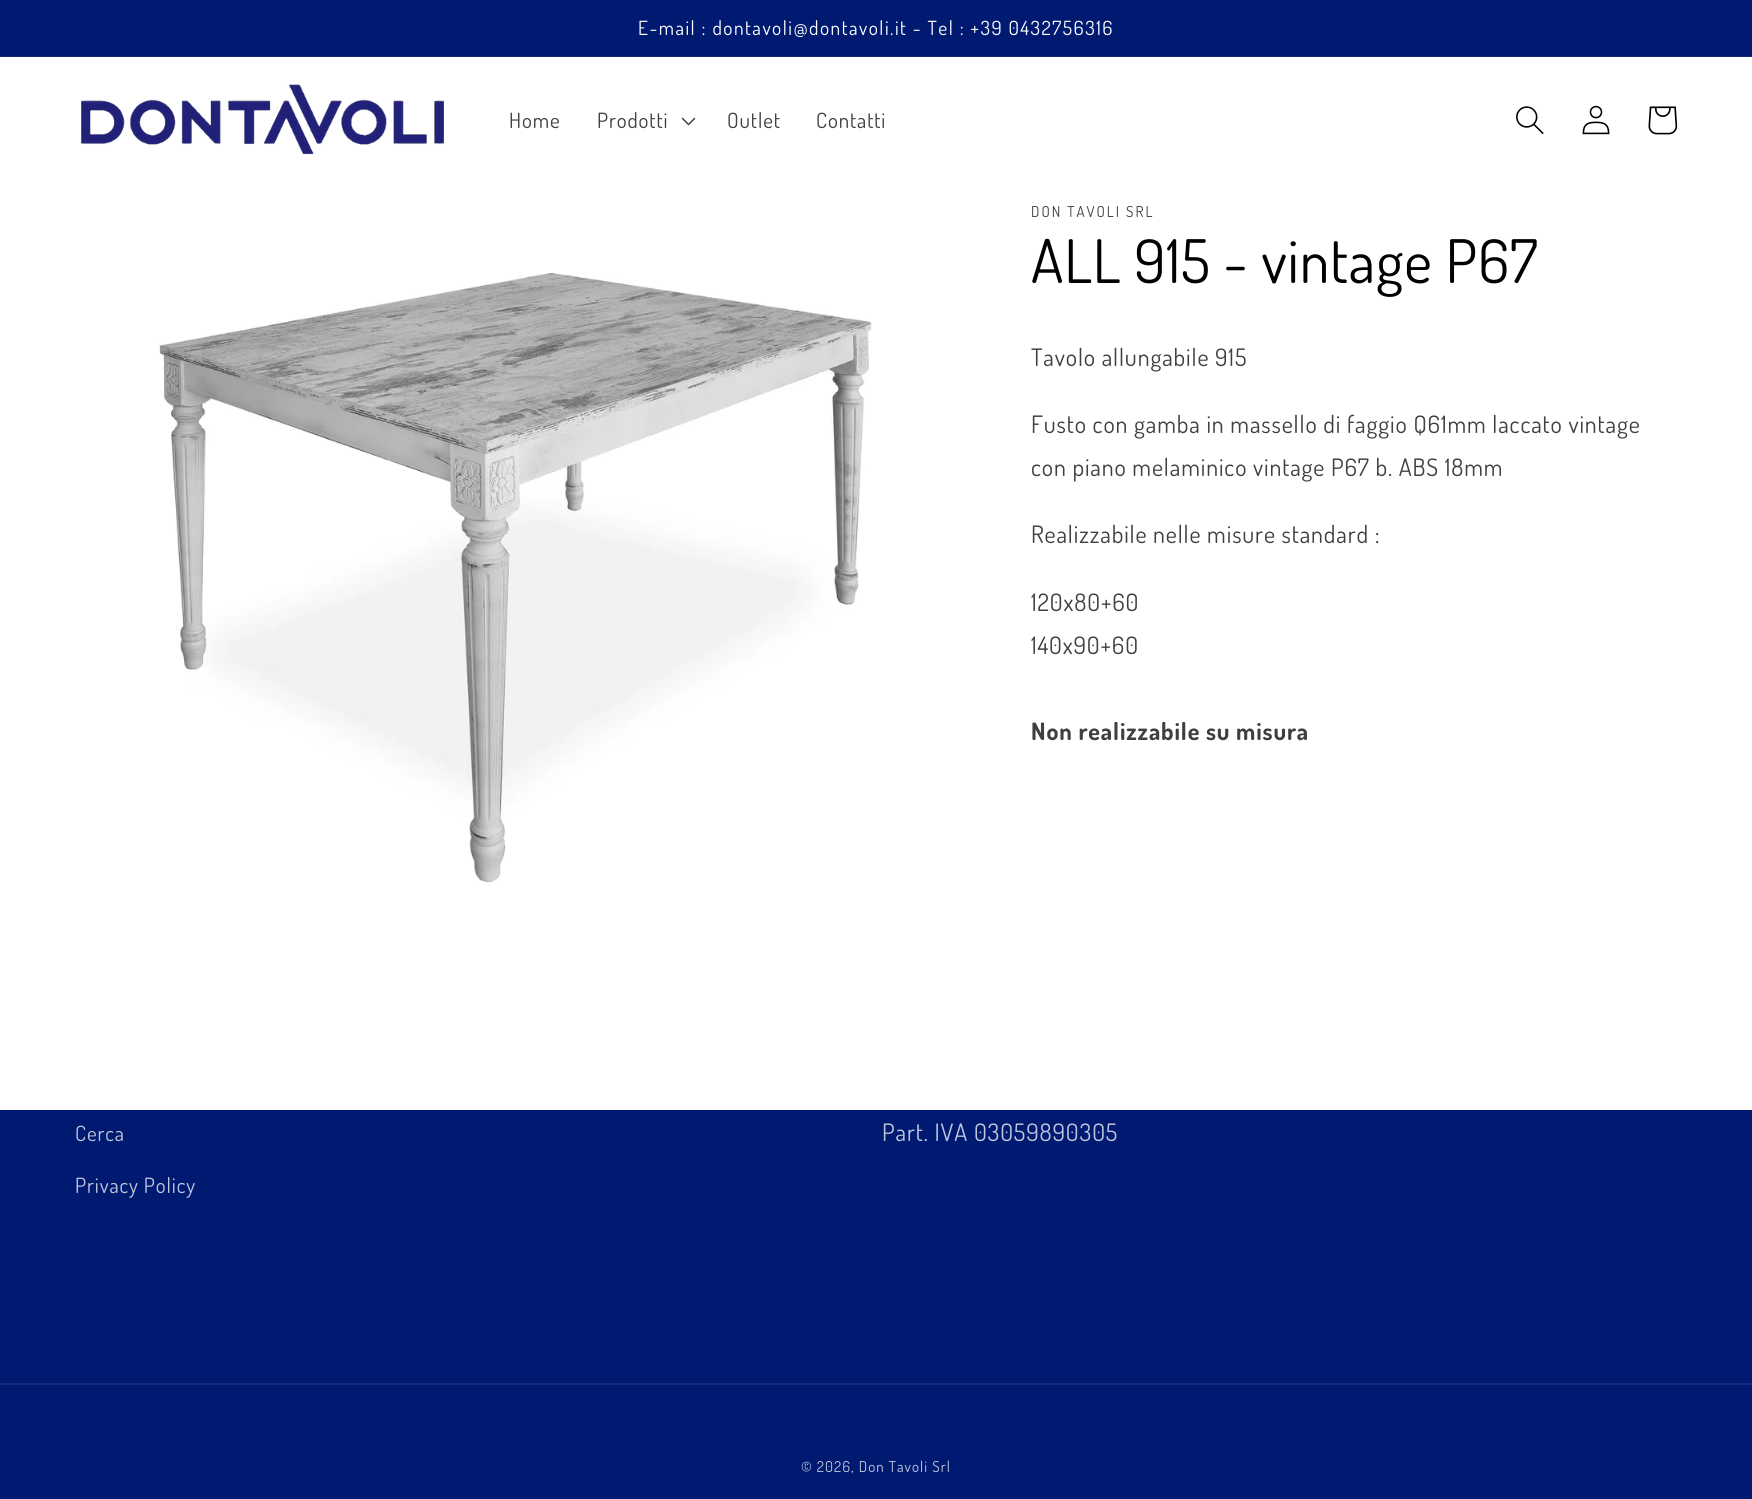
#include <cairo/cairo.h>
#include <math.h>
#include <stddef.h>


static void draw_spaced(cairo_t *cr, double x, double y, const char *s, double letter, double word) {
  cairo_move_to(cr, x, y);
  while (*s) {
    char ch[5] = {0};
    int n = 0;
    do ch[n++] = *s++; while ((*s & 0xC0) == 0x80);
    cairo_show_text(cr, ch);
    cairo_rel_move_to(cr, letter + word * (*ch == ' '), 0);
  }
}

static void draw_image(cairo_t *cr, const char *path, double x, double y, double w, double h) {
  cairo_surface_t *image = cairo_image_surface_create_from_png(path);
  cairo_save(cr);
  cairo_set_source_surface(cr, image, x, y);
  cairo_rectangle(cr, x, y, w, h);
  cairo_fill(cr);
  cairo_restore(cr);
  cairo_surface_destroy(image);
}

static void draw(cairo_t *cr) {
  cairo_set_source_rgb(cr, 1, 1, 1);
  cairo_paint(cr);
  cairo_set_source_rgb(cr, 0, 25 / 255.0, 113 / 255.0);
  cairo_rectangle(cr, 0, 0, 1752, 56);
  cairo_fill(cr);
  cairo_set_source_rgb(cr, 20 / 255.0, 43 / 255.0, 124 / 255.0);
  cairo_rectangle(cr, 0, 56, 1752, 1);
  cairo_fill(cr);
  draw_image(cr, "images/1.png", 81, 84, 364, 71);
  draw_image(cr, "images/2.png", 681, 117, 15, 9);
  draw_image(cr, "images/3.png", 1516, 106, 28, 28);
  draw_image(cr, "images/4.png", 1582, 105, 28, 30);
  draw_image(cr, "images/5.png", 1648, 106, 30, 29);
  draw_image(cr, "images/6.png", 158, 273, 714, 609);
  cairo_set_source_rgb(cr, 0, 25 / 255.0, 113 / 255.0);
  cairo_rectangle(cr, 0, 1110, 1752, 389);
  cairo_fill(cr);
  cairo_set_source_rgb(cr, 20 / 255.0, 43 / 255.0, 124 / 255.0);
  cairo_rectangle(cr, 0, 1383, 1752, 2);
  cairo_fill(cr);
  cairo_select_font_face(cr, "Dosis", CAIRO_FONT_SLANT_NORMAL, CAIRO_FONT_WEIGHT_NORMAL);
  cairo_set_font_size(cr, 19.5);
  cairo_set_source_rgb(cr, 1, 1, 1);
  draw_spaced(cr, 638, 35, "E-mail : dontavoli@dontavoli.it - Tel : +39 0432756316", 1.5, 0);
  cairo_set_font_size(cr, 21);
  cairo_set_source_rgb(cr, 64 / 255.0, 64 / 255.0, 64 / 255.0);
  draw_spaced(cr, 509, 128, "Home", 0.9, 0);
  draw_spaced(cr, 597, 128, "Prodotti", 0.9, 0);
  draw_spaced(cr, 727, 128, "Outlet", 0.9, 0);
  draw_spaced(cr, 816, 128, "Contatti", 0.9, 0);
  cairo_set_font_size(cr, 15);
  draw_spaced(cr, 1031, 217, "DON TAVOLI SRL", 2, 0);
  cairo_set_font_size(cr, 60);
  cairo_set_source_rgb(cr, 0, 0, 0);
  draw_spaced(cr, 1031, 283, "ALL 915 - vintage P67", 0.9, 0);
  cairo_set_font_size(cr, 24);
  cairo_set_source_rgb(cr, 64 / 255.0, 64 / 255.0, 64 / 255.0);
  draw_spaced(cr, 1031, 366, "Tavolo allungabile 915", 0.9, 0);
  draw_spaced(cr, 1031, 433, "Fusto con gamba in massello di faggio Q61mm laccato vintage", 0.9, 0);
  draw_spaced(cr, 1031, 476, "con piano melaminico vintage P67 b. ABS 18mm", 0.9, 0);
  draw_spaced(cr, 1031, 543, "Realizzabile nelle misure standard :", 0.9, 0);
  draw_spaced(cr, 1031, 611, "120x80+60", 0.9, 0);
  draw_spaced(cr, 1031, 654, "140x90+60", 0.9, 0);
  cairo_select_font_face(cr, "Dosis", CAIRO_FONT_SLANT_NORMAL, CAIRO_FONT_WEIGHT_BOLD);
  draw_spaced(cr, 1031, 740, "Non realizzabile su misura", 0.9, 0);
  cairo_select_font_face(cr, "Dosis", CAIRO_FONT_SLANT_NORMAL, CAIRO_FONT_WEIGHT_NORMAL);
  cairo_set_font_size(cr, 21);
  cairo_set_source_rgb(cr, 191 / 255.0, 198 / 255.0, 220 / 255.0);
  draw_spaced(cr, 75, 1141, "Cerca", 0.9, 0);
  draw_spaced(cr, 75, 1193, "Privacy Policy", 0.9, 0);
  cairo_set_font_size(cr, 24);
  draw_spaced(cr, 882, 1141, "Part. IVA 03059890305", 0.9, 0);
  cairo_set_font_size(cr, 15);
  draw_spaced(cr, 801, 1472, "© 2026, Don Tavoli Srl", 1.05, 0);
}

int main(void) {
  cairo_surface_t *surface = cairo_image_surface_create(CAIRO_FORMAT_RGB24, 1752, 1499);
  cairo_t *cr = cairo_create(surface);
  cairo_font_options_t *options = cairo_font_options_create();
  cairo_font_options_set_hint_metrics(options, CAIRO_HINT_METRICS_OFF);
  cairo_font_options_set_hint_style(options, CAIRO_HINT_STYLE_NONE);
  cairo_set_font_options(cr, options);
  cairo_set_miter_limit(cr, 4);
  draw(cr);
  cairo_surface_write_to_png(surface, "out.png");
  cairo_font_options_destroy(options);
  cairo_destroy(cr);
  cairo_surface_destroy(surface);
  return 0;
}
